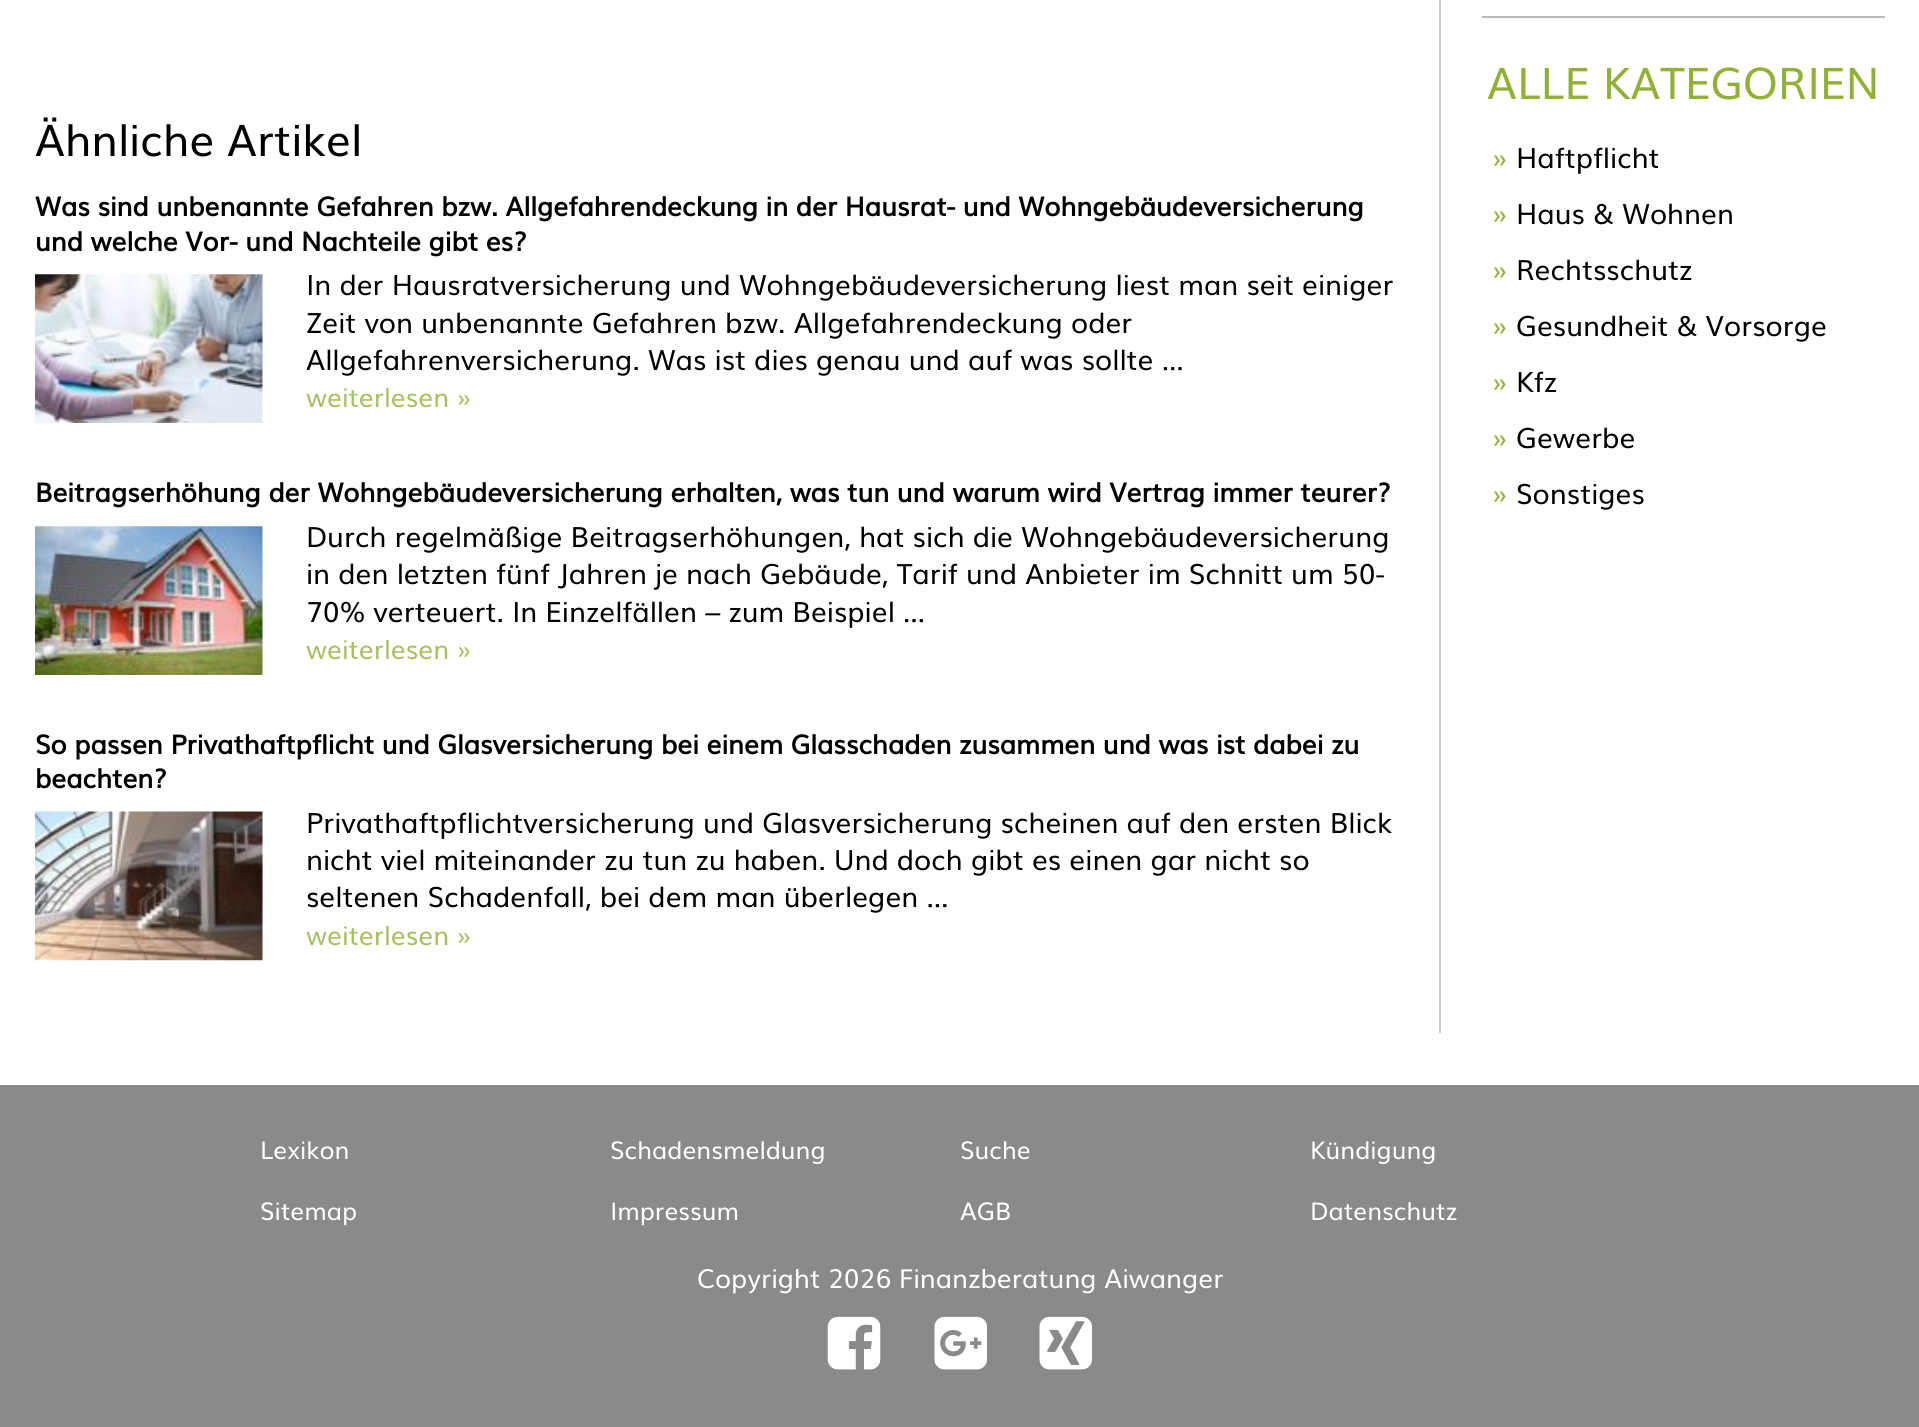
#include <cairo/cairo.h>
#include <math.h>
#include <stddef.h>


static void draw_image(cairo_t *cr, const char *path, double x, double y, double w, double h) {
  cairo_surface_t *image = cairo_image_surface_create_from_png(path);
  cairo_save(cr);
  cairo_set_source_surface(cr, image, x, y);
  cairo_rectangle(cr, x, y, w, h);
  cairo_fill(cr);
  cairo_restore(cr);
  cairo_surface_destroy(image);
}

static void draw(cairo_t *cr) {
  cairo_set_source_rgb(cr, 1, 1, 1);
  cairo_paint(cr);
  cairo_set_source_rgb(cr, 205 / 255.0, 205 / 255.0, 204 / 255.0);
  cairo_rectangle(cr, 1439, 0, 2, 1033);
  cairo_fill(cr);
  draw_image(cr, "images/1.png", 35, 274, 228, 149);
  draw_image(cr, "images/2.png", 35, 526, 228, 149);
  draw_image(cr, "images/3.png", 35, 811, 228, 150);
  cairo_set_source_rgb(cr, 184 / 255.0, 184 / 255.0, 184 / 255.0);
  cairo_rectangle(cr, 1482, 16, 403, 2);
  cairo_fill(cr);
  cairo_set_source_rgb(cr, 138 / 255.0, 138 / 255.0, 138 / 255.0);
  cairo_rectangle(cr, 0, 1085, 1919, 342);
  cairo_fill(cr);
  draw_image(cr, "images/4.png", 827, 1316, 54, 54);
  draw_image(cr, "images/5.png", 934, 1316, 53, 54);
  draw_image(cr, "images/6.png", 1039, 1316, 53, 54);
  cairo_select_font_face(cr, "Muli", CAIRO_FONT_SLANT_NORMAL, CAIRO_FONT_WEIGHT_NORMAL);
  cairo_set_font_size(cr, 43.75);
  cairo_set_source_rgb(cr, 0, 0, 0);
  cairo_move_to(cr, 35, 156);
  cairo_show_text(cr, "Ähnliche Artikel");
  cairo_select_font_face(cr, "Muli", CAIRO_FONT_SLANT_NORMAL, CAIRO_FONT_WEIGHT_BOLD);
  cairo_set_font_size(cr, 26.25);
  cairo_move_to(cr, 35, 216);
  cairo_show_text(cr, "Was sind unbenannte Gefahren bzw. Allgefahrendeckung in der Hausrat- und Wohngebäudeversicherung");
  cairo_move_to(cr, 35, 251);
  cairo_show_text(cr, "und welche Vor- und Nachteile gibt es?");
  cairo_select_font_face(cr, "Muli", CAIRO_FONT_SLANT_NORMAL, CAIRO_FONT_WEIGHT_NORMAL);
  cairo_set_font_size(cr, 28);
  cairo_move_to(cr, 306, 295);
  cairo_show_text(cr, "In der Hausratversicherung und Wohngebäudeversicherung liest man seit einiger");
  cairo_move_to(cr, 306, 333);
  cairo_show_text(cr, "Zeit von unbenannte Gefahren bzw. Allgefahrendeckung oder");
  cairo_move_to(cr, 306, 370);
  cairo_show_text(cr, "Allgefahrenversicherung. Was ist dies genau und auf was sollte …");
  cairo_set_font_size(cr, 26.25);
  cairo_set_source_rgb(cr, 168 / 255.0, 191 / 255.0, 96 / 255.0);
  cairo_move_to(cr, 306, 407);
  cairo_show_text(cr, "weiterlesen »");
  cairo_select_font_face(cr, "Muli", CAIRO_FONT_SLANT_NORMAL, CAIRO_FONT_WEIGHT_BOLD);
  cairo_set_source_rgb(cr, 0, 0, 0);
  cairo_move_to(cr, 35, 502);
  cairo_show_text(cr, "Beitragserhöhung der Wohngebäudeversicherung erhalten, was tun und warum wird Vertrag immer teurer?");
  cairo_select_font_face(cr, "Muli", CAIRO_FONT_SLANT_NORMAL, CAIRO_FONT_WEIGHT_NORMAL);
  cairo_set_font_size(cr, 28);
  cairo_move_to(cr, 306, 547);
  cairo_show_text(cr, "Durch regelmäßige Beitragserhöhungen, hat sich die Wohngebäudeversicherung");
  cairo_move_to(cr, 306, 584);
  cairo_show_text(cr, "in den letzten fünf Jahren je nach Gebäude, Tarif und Anbieter im Schnitt um 50-");
  cairo_move_to(cr, 306, 622);
  cairo_show_text(cr, "70% verteuert. In Einzelfällen – zum Beispiel …");
  cairo_set_font_size(cr, 26.25);
  cairo_set_source_rgb(cr, 168 / 255.0, 191 / 255.0, 96 / 255.0);
  cairo_move_to(cr, 306, 659);
  cairo_show_text(cr, "weiterlesen »");
  cairo_select_font_face(cr, "Muli", CAIRO_FONT_SLANT_NORMAL, CAIRO_FONT_WEIGHT_BOLD);
  cairo_set_source_rgb(cr, 0, 0, 0);
  cairo_move_to(cr, 35, 754);
  cairo_show_text(cr, "So passen Privathaftpflicht und Glasversicherung bei einem Glasschaden zusammen und was ist dabei zu");
  cairo_move_to(cr, 35, 788);
  cairo_show_text(cr, "beachten?");
  cairo_select_font_face(cr, "Muli", CAIRO_FONT_SLANT_NORMAL, CAIRO_FONT_WEIGHT_NORMAL);
  cairo_set_font_size(cr, 28);
  cairo_move_to(cr, 306, 833);
  cairo_show_text(cr, "Privathaftpflichtversicherung und Glasversicherung scheinen auf den ersten Blick");
  cairo_move_to(cr, 306, 870);
  cairo_show_text(cr, "nicht viel miteinander zu tun zu haben. Und doch gibt es einen gar nicht so");
  cairo_move_to(cr, 306, 907);
  cairo_show_text(cr, "seltenen Schadenfall, bei dem man überlegen …");
  cairo_set_font_size(cr, 26.25);
  cairo_set_source_rgb(cr, 168 / 255.0, 191 / 255.0, 96 / 255.0);
  cairo_move_to(cr, 306, 945);
  cairo_show_text(cr, "weiterlesen »");
  cairo_set_font_size(cr, 43.75);
  cairo_set_source_rgb(cr, 146 / 255.0, 175 / 255.0, 54 / 255.0);
  cairo_move_to(cr, 1487, 99);
  cairo_show_text(cr, "ALLE KATEGORIEN");
  cairo_set_font_size(cr, 28);
  cairo_move_to(cr, 1492, 168);
  cairo_show_text(cr, "»");
  cairo_set_source_rgb(cr, 0, 0, 0);
  cairo_move_to(cr, 1516, 168);
  cairo_show_text(cr, "Haftpflicht");
  cairo_set_source_rgb(cr, 146 / 255.0, 175 / 255.0, 54 / 255.0);
  cairo_move_to(cr, 1492, 224);
  cairo_show_text(cr, "»");
  cairo_set_source_rgb(cr, 0, 0, 0);
  cairo_move_to(cr, 1516, 224);
  cairo_show_text(cr, "Haus & Wohnen");
  cairo_set_source_rgb(cr, 146 / 255.0, 175 / 255.0, 54 / 255.0);
  cairo_move_to(cr, 1492, 280);
  cairo_show_text(cr, "»");
  cairo_set_source_rgb(cr, 0, 0, 0);
  cairo_move_to(cr, 1516, 280);
  cairo_show_text(cr, "Rechtsschutz");
  cairo_set_source_rgb(cr, 146 / 255.0, 175 / 255.0, 54 / 255.0);
  cairo_move_to(cr, 1492, 336);
  cairo_show_text(cr, "»");
  cairo_set_source_rgb(cr, 0, 0, 0);
  cairo_move_to(cr, 1516, 336);
  cairo_show_text(cr, "Gesundheit & Vorsorge");
  cairo_set_source_rgb(cr, 146 / 255.0, 175 / 255.0, 54 / 255.0);
  cairo_move_to(cr, 1492, 392);
  cairo_show_text(cr, "»");
  cairo_set_source_rgb(cr, 0, 0, 0);
  cairo_move_to(cr, 1516, 392);
  cairo_show_text(cr, "Kfz");
  cairo_set_source_rgb(cr, 146 / 255.0, 175 / 255.0, 54 / 255.0);
  cairo_move_to(cr, 1492, 448);
  cairo_show_text(cr, "»");
  cairo_set_source_rgb(cr, 0, 0, 0);
  cairo_move_to(cr, 1516, 448);
  cairo_show_text(cr, "Gewerbe");
  cairo_set_source_rgb(cr, 146 / 255.0, 175 / 255.0, 54 / 255.0);
  cairo_move_to(cr, 1492, 504);
  cairo_show_text(cr, "»");
  cairo_set_source_rgb(cr, 0, 0, 0);
  cairo_move_to(cr, 1516, 504);
  cairo_show_text(cr, "Sonstiges");
  cairo_set_font_size(cr, 24.5);
  cairo_set_source_rgb(cr, 1, 1, 1);
  cairo_move_to(cr, 260, 1159);
  cairo_show_text(cr, "Lexikon");
  cairo_move_to(cr, 610, 1159);
  cairo_show_text(cr, "Schadensmeldung");
  cairo_move_to(cr, 960, 1159);
  cairo_show_text(cr, "Suche");
  cairo_move_to(cr, 1310, 1159);
  cairo_show_text(cr, "Kündigung");
  cairo_move_to(cr, 260, 1220);
  cairo_show_text(cr, "Sitemap");
  cairo_move_to(cr, 610, 1220);
  cairo_show_text(cr, "Impressum");
  cairo_move_to(cr, 960, 1220);
  cairo_show_text(cr, "AGB");
  cairo_move_to(cr, 1310, 1220);
  cairo_show_text(cr, "Datenschutz");
  cairo_set_font_size(cr, 26.25);
  cairo_move_to(cr, 697, 1288);
  cairo_show_text(cr, "Copyright 2026 Finanzberatung Aiwanger");
}

int main(void) {
  cairo_surface_t *surface = cairo_image_surface_create(CAIRO_FORMAT_RGB24, 1919, 1427);
  cairo_t *cr = cairo_create(surface);
  cairo_font_options_t *options = cairo_font_options_create();
  cairo_font_options_set_hint_metrics(options, CAIRO_HINT_METRICS_OFF);
  cairo_font_options_set_hint_style(options, CAIRO_HINT_STYLE_NONE);
  cairo_set_font_options(cr, options);
  cairo_set_miter_limit(cr, 4);
  draw(cr);
  cairo_surface_write_to_png(surface, "out.png");
  cairo_font_options_destroy(options);
  cairo_destroy(cr);
  cairo_surface_destroy(surface);
  return 0;
}
